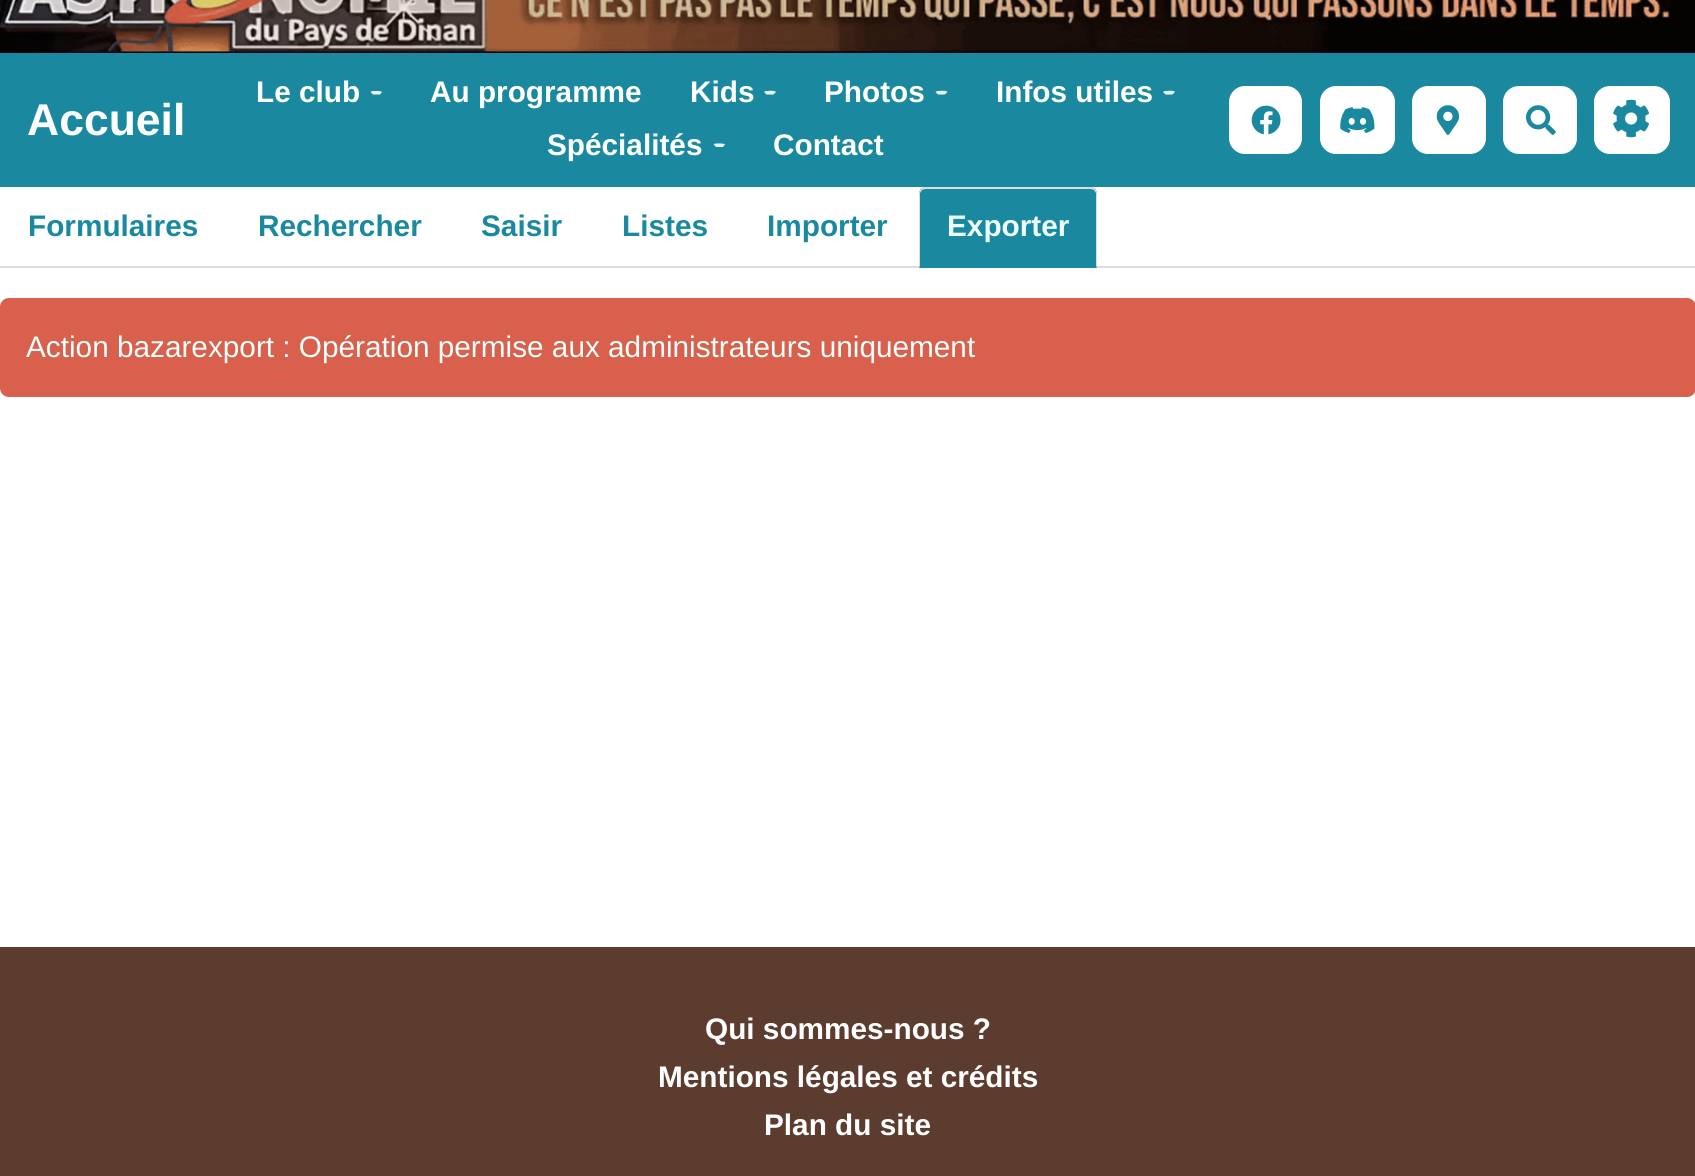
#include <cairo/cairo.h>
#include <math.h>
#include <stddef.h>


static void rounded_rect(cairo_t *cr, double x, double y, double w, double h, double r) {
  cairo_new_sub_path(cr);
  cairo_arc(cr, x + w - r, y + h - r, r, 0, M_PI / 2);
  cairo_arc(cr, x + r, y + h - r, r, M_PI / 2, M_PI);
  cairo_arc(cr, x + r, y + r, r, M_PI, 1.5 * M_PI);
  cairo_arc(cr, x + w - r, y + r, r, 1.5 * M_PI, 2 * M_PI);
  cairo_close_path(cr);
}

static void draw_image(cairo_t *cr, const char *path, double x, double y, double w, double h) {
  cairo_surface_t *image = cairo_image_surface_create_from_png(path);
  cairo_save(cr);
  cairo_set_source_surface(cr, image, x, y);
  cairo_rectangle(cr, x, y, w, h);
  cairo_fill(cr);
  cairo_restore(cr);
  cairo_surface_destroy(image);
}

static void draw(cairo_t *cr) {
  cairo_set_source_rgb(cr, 1, 1, 1);
  cairo_paint(cr);
  cairo_set_source_rgb(cr, 6 / 255.0, 3 / 255.0, 24 / 255.0);
  cairo_rectangle(cr, 0, 52, 1695, 1);
  cairo_fill(cr);
  draw_image(cr, "images/1.png", 0, 0, 1695, 52);
  cairo_set_source_rgb(cr, 26 / 255.0, 137 / 255.0, 160 / 255.0);
  cairo_rectangle(cr, 0, 53, 1695, 134);
  cairo_fill(cr);
  cairo_set_source_rgb(cr, 232 / 255.0, 243 / 255.0, 246 / 255.0);
  cairo_new_path(cr);
  cairo_move_to(cr, 373, 91);
  cairo_curve_to(cr, 375, 91, 380.5, 90.5, 382, 92);
  cairo_line_to(cr, 380, 94.5);
  cairo_line_to(cr, 373, 94.5);
  cairo_line_to(cr, 370.5, 92);
  cairo_curve_to(cr, 371, 91.5, 372, 91, 373, 91);
  cairo_close_path(cr);
  cairo_fill(cr);
  cairo_new_path(cr);
  cairo_move_to(cr, 766.5, 91);
  cairo_curve_to(cr, 768.5, 91, 774.5, 90, 776, 92);
  cairo_line_to(cr, 773.5, 94.5);
  cairo_line_to(cr, 766.5, 94.5);
  cairo_line_to(cr, 764, 92);
  cairo_curve_to(cr, 764.5, 91.5, 765.5, 91, 766.5, 91);
  cairo_close_path(cr);
  cairo_fill(cr);
  cairo_new_path(cr);
  cairo_move_to(cr, 938, 91);
  cairo_curve_to(cr, 940, 91, 946, 90, 947.5, 92);
  cairo_line_to(cr, 945, 94.5);
  cairo_line_to(cr, 938, 94.5);
  cairo_line_to(cr, 935.5, 92);
  cairo_curve_to(cr, 936, 91.5, 937, 91, 938, 91);
  cairo_close_path(cr);
  cairo_fill(cr);
  cairo_new_path(cr);
  cairo_move_to(cr, 1165.5, 91);
  cairo_curve_to(cr, 1167.5, 91, 1173.5, 90, 1175, 92);
  cairo_line_to(cr, 1172.5, 94.5);
  cairo_line_to(cr, 1165.5, 94.5);
  cairo_line_to(cr, 1163, 92);
  cairo_curve_to(cr, 1163.5, 91.5, 1164.5, 91, 1165.5, 91);
  cairo_close_path(cr);
  cairo_fill(cr);
  cairo_new_path(cr);
  cairo_move_to(cr, 716, 143.5);
  cairo_curve_to(cr, 718, 143.5, 723.5, 143, 725, 144.5);
  cairo_line_to(cr, 723, 147);
  cairo_line_to(cr, 716, 147);
  cairo_line_to(cr, 713.5, 144.5);
  cairo_curve_to(cr, 714, 144, 715, 143.5, 716, 143.5);
  cairo_close_path(cr);
  cairo_fill(cr);
  cairo_set_source_rgb(cr, 1, 1, 1);
  rounded_rect(cr, 1229, 86, 73, 68, 16);
  cairo_fill(cr);
  draw_image(cr, "images/2.png", 1251, 105, 30, 30);
  rounded_rect(cr, 1320, 86, 75, 68, 16);
  cairo_fill(cr);
  draw_image(cr, "images/3.png", 1340, 107, 35, 27);
  rounded_rect(cr, 1412, 86, 74, 68, 16);
  cairo_fill(cr);
  draw_image(cr, "images/4.png", 1436, 105, 24, 30);
  rounded_rect(cr, 1503, 86, 74, 68, 16);
  cairo_fill(cr);
  draw_image(cr, "images/5.png", 1526, 105, 30, 30);
  rounded_rect(cr, 1594, 86, 76, 68, 16);
  cairo_fill(cr);
  draw_image(cr, "images/6.png", 1613, 99, 36, 39);
  cairo_set_source_rgb(cr, 221 / 255.0, 221 / 255.0, 221 / 255.0);
  cairo_rectangle(cr, 0, 266, 1695, 2);
  cairo_fill(cr);
  cairo_set_source_rgb(cr, 26 / 255.0, 137 / 255.0, 160 / 255.0);
  cairo_new_path(cr);
  cairo_move_to(cr, 926, 187);
  cairo_line_to(cr, 1090, 187);
  cairo_curve_to(cr, 1094, 187, 1097, 190, 1097, 194);
  cairo_line_to(cr, 1097, 268);
  cairo_line_to(cr, 919, 268);
  cairo_line_to(cr, 919, 194);
  cairo_curve_to(cr, 919, 190, 922, 187, 926, 187);
  cairo_close_path(cr);
  cairo_fill(cr);
  cairo_set_source_rgb(cr, 221 / 255.0, 221 / 255.0, 221 / 255.0);
  cairo_new_path(cr);
  cairo_move_to(cr, 926, 189);
  cairo_curve_to(cr, 924, 189, 923, 190, 922, 190);
  cairo_line_to(cr, 921, 189);
  cairo_line_to(cr, 924, 187);
  cairo_line_to(cr, 1092, 187);
  cairo_line_to(cr, 1095, 189);
  cairo_line_to(cr, 1094, 190);
  cairo_curve_to(cr, 1093, 190, 1092, 189, 1090, 189);
  cairo_close_path(cr);
  cairo_fill(cr);
  cairo_new_path(cr);
  cairo_move_to(cr, 1095, 189);
  cairo_curve_to(cr, 1096, 190, 1097, 192, 1097, 194);
  cairo_line_to(cr, 1097, 268);
  cairo_line_to(cr, 1096, 266);
  cairo_line_to(cr, 1096, 193);
  cairo_line_to(cr, 1094, 190);
  cairo_close_path(cr);
  cairo_fill(cr);
  cairo_new_path(cr);
  cairo_move_to(cr, 919, 268);
  cairo_line_to(cr, 919, 194);
  cairo_curve_to(cr, 919, 192, 920, 190, 921, 189);
  cairo_line_to(cr, 922, 190);
  cairo_line_to(cr, 920, 193);
  cairo_line_to(cr, 920, 266);
  cairo_close_path(cr);
  cairo_fill(cr);
  cairo_set_source_rgb(cr, 216 / 255.0, 96 / 255.0, 76 / 255.0);
  rounded_rect(cr, 0, 298, 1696, 99, 9);
  cairo_fill(cr);
  cairo_set_source_rgb(cr, 92 / 255.0, 60 / 255.0, 47 / 255.0);
  cairo_rectangle(cr, 0, 947, 1695, 229);
  cairo_fill(cr);
  cairo_select_font_face(cr, "Liberation Sans", CAIRO_FONT_SLANT_NORMAL, CAIRO_FONT_WEIGHT_BOLD);
  cairo_set_font_size(cr, 44.5);
  cairo_set_source_rgb(cr, 1, 1, 1);
  cairo_move_to(cr, 27, 135);
  cairo_show_text(cr, "Accueil");
  cairo_set_font_size(cr, 29.75);
  cairo_move_to(cr, 256, 102);
  cairo_show_text(cr, "Le club");
  cairo_move_to(cr, 430, 102);
  cairo_show_text(cr, "Au programme");
  cairo_move_to(cr, 690, 102);
  cairo_show_text(cr, "Kids");
  cairo_move_to(cr, 824, 102);
  cairo_show_text(cr, "Photos");
  cairo_move_to(cr, 996, 102);
  cairo_show_text(cr, "Infos utiles");
  cairo_move_to(cr, 547, 155);
  cairo_show_text(cr, "Spécialités");
  cairo_move_to(cr, 773, 155);
  cairo_show_text(cr, "Contact");
  cairo_set_source_rgb(cr, 26 / 255.0, 137 / 255.0, 160 / 255.0);
  cairo_move_to(cr, 28, 236);
  cairo_show_text(cr, "Formulaires");
  cairo_move_to(cr, 258, 236);
  cairo_show_text(cr, "Rechercher");
  cairo_move_to(cr, 481, 236);
  cairo_show_text(cr, "Saisir");
  cairo_move_to(cr, 622, 236);
  cairo_show_text(cr, "Listes");
  cairo_move_to(cr, 767, 236);
  cairo_show_text(cr, "Importer");
  cairo_set_source_rgb(cr, 238 / 255.0, 1, 252 / 255.0);
  cairo_move_to(cr, 947, 236);
  cairo_show_text(cr, "Exporter");
  cairo_select_font_face(cr, "Liberation Sans", CAIRO_FONT_SLANT_NORMAL, CAIRO_FONT_WEIGHT_NORMAL);
  cairo_move_to(cr, 26, 357);
  cairo_show_text(cr, "Action bazarexport : Opération permise aux administrateurs uniquement");
  cairo_select_font_face(cr, "Liberation Sans", CAIRO_FONT_SLANT_NORMAL, CAIRO_FONT_WEIGHT_BOLD);
  cairo_set_source_rgb(cr, 1, 1, 1);
  cairo_move_to(cr, 705, 1039);
  cairo_show_text(cr, "Qui sommes-nous ?");
  cairo_move_to(cr, 658, 1087);
  cairo_show_text(cr, "Mentions légales et crédits");
  cairo_move_to(cr, 764, 1135);
  cairo_show_text(cr, "Plan du site");
}

int main(void) {
  cairo_surface_t *surface = cairo_image_surface_create(CAIRO_FORMAT_RGB24, 1695, 1176);
  cairo_t *cr = cairo_create(surface);
  cairo_font_options_t *options = cairo_font_options_create();
  cairo_font_options_set_hint_metrics(options, CAIRO_HINT_METRICS_OFF);
  cairo_font_options_set_hint_style(options, CAIRO_HINT_STYLE_NONE);
  cairo_set_font_options(cr, options);
  cairo_set_miter_limit(cr, 4);
  draw(cr);
  cairo_surface_write_to_png(surface, "out.png");
  cairo_font_options_destroy(options);
  cairo_destroy(cr);
  cairo_surface_destroy(surface);
  return 0;
}
